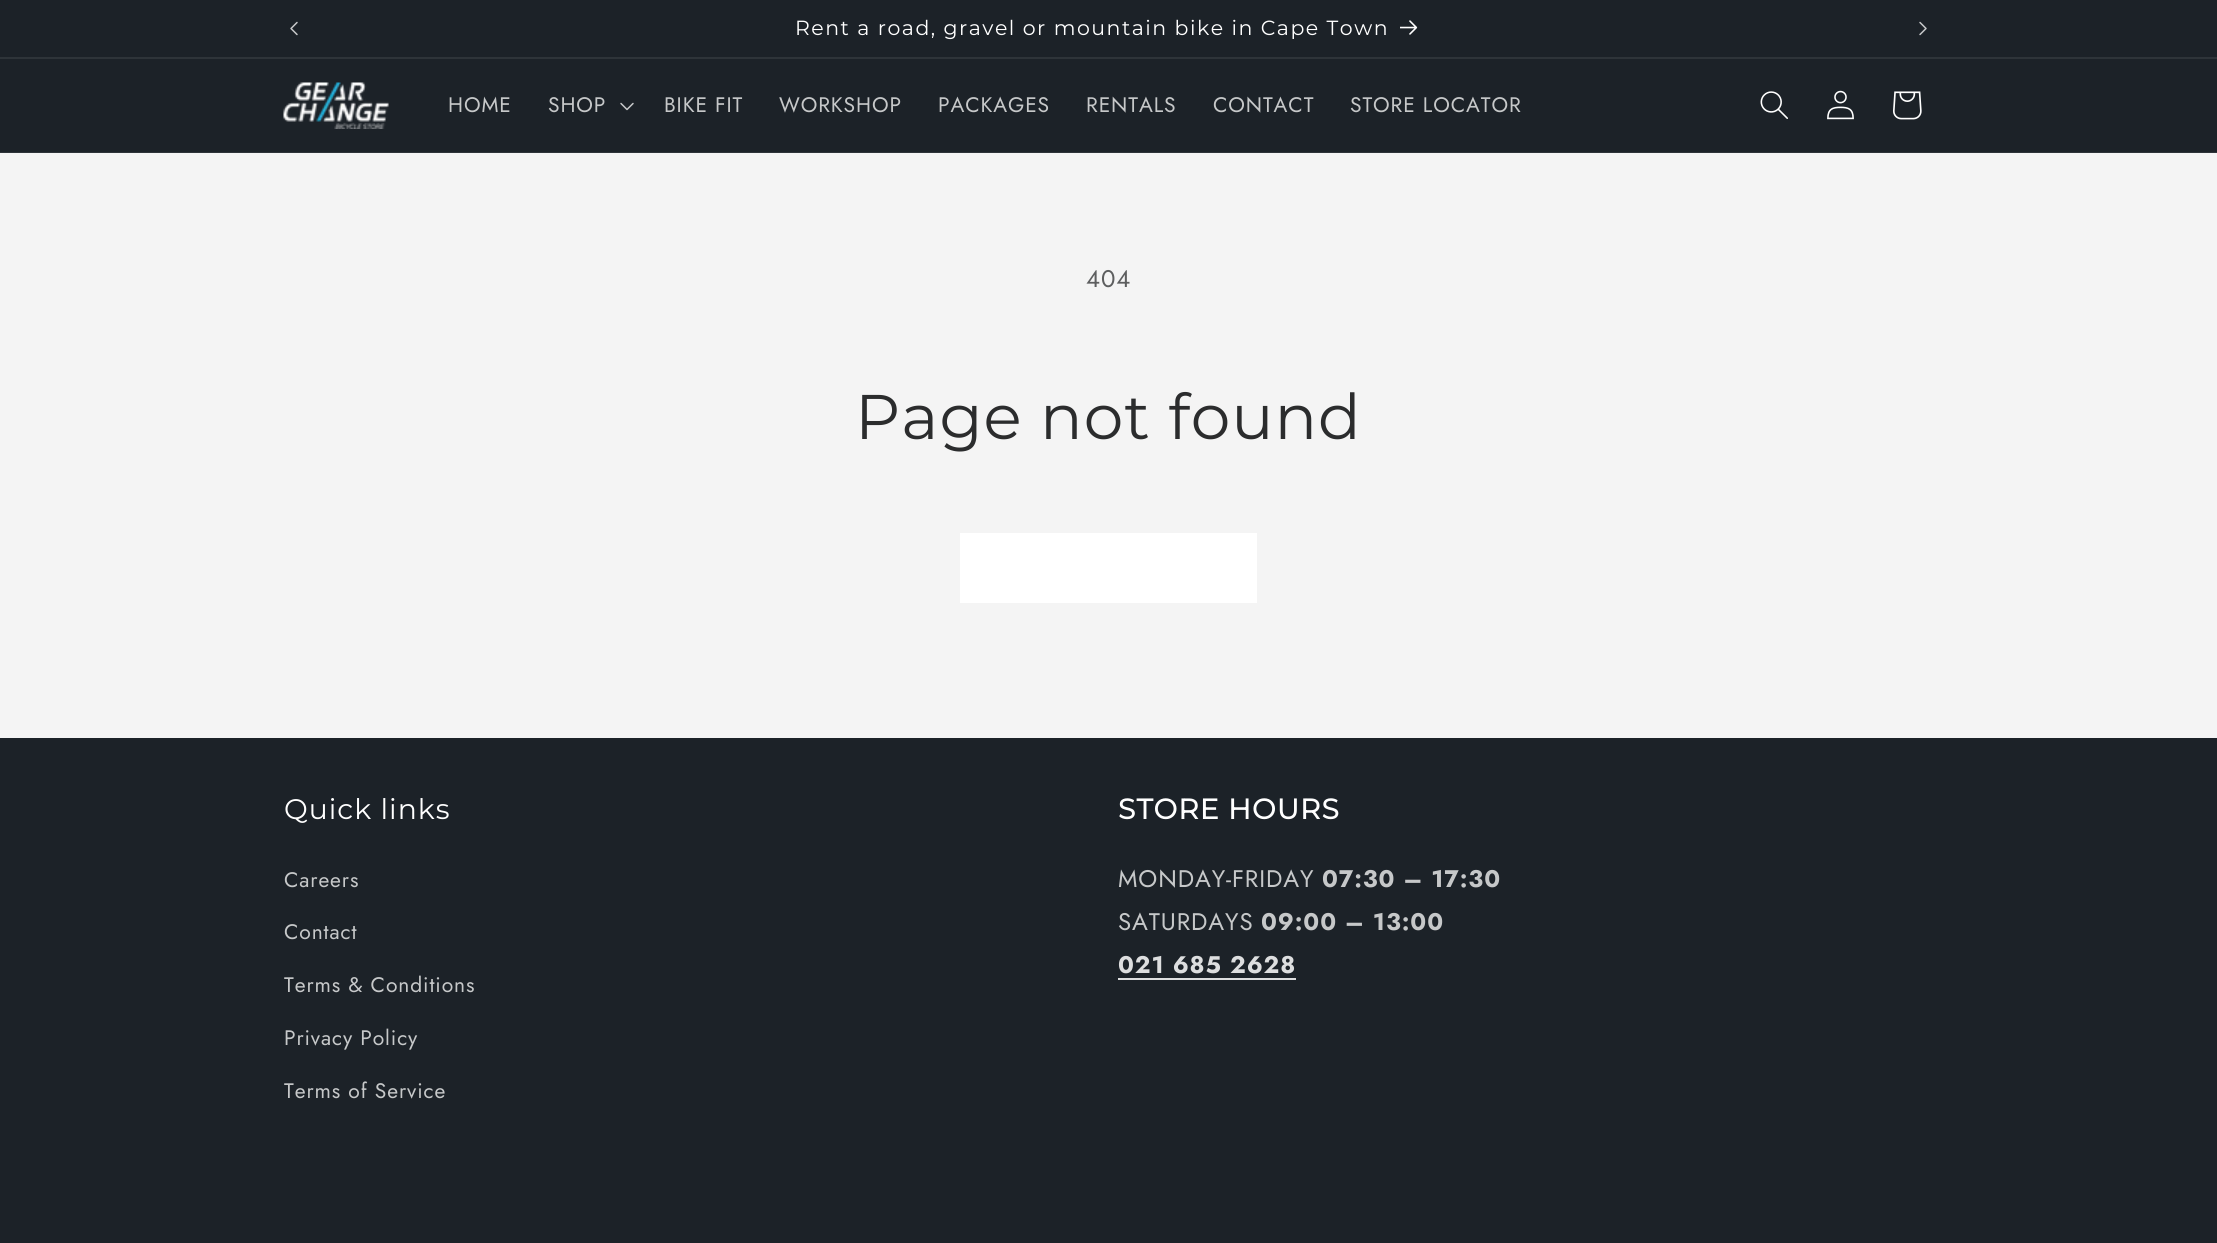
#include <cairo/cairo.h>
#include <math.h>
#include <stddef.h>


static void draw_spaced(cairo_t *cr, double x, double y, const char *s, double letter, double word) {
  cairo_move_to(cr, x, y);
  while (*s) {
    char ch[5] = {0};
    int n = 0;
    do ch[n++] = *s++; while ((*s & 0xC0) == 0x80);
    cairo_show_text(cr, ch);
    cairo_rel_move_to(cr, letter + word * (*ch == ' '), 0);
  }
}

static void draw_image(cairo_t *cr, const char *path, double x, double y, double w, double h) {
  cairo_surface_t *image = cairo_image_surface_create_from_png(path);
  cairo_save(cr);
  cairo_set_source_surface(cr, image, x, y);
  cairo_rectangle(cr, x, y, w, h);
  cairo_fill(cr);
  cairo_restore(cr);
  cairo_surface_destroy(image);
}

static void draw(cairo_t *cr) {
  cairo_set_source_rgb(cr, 244 / 255.0, 244 / 255.0, 244 / 255.0);
  cairo_paint(cr);
  cairo_set_source_rgb(cr, 28 / 255.0, 34 / 255.0, 40 / 255.0);
  cairo_rectangle(cr, 0, 0, 2217, 57);
  cairo_fill(cr);
  cairo_set_source_rgb(cr, 46 / 255.0, 52 / 255.0, 57 / 255.0);
  cairo_rectangle(cr, 0, 57, 2217, 2);
  cairo_fill(cr);
  draw_image(cr, "images/1.png", 290, 21, 8, 15);
  draw_image(cr, "images/2.png", 1400, 20, 18, 15);
  draw_image(cr, "images/3.png", 1919, 21, 8, 15);
  cairo_set_source_rgb(cr, 28 / 255.0, 34 / 255.0, 40 / 255.0);
  cairo_rectangle(cr, 0, 59, 2217, 93);
  cairo_fill(cr);
  cairo_set_source_rgb(cr, 46 / 255.0, 52 / 255.0, 57 / 255.0);
  cairo_rectangle(cr, 0, 152, 2217, 1);
  cairo_fill(cr);
  draw_image(cr, "images/4.png", 283, 82, 106, 47);
  draw_image(cr, "images/5.png", 620, 102, 14, 9);
  draw_image(cr, "images/6.png", 1760, 91, 28, 28);
  draw_image(cr, "images/7.png", 1827, 90, 27, 30);
  draw_image(cr, "images/8.png", 1893, 91, 29, 29);
  cairo_set_source_rgb(cr, 1, 1, 1);
  cairo_rectangle(cr, 960, 533, 297, 70);
  cairo_fill(cr);
  cairo_set_source_rgb(cr, 28 / 255.0, 34 / 255.0, 40 / 255.0);
  cairo_rectangle(cr, 0, 738, 2217, 505);
  cairo_fill(cr);
  cairo_set_source_rgb(cr, 221 / 255.0, 222 / 255.0, 223 / 255.0);
  cairo_rectangle(cr, 1118, 978, 178, 2);
  cairo_fill(cr);
  cairo_select_font_face(cr, "Montserrat", CAIRO_FONT_SLANT_NORMAL, CAIRO_FONT_WEIGHT_NORMAL);
  cairo_set_font_size(cr, 20.5);
  cairo_set_source_rgb(cr, 1, 1, 1);
  draw_spaced(cr, 795, 35, "Rent a road, gravel or mountain bike in Cape Town", 1.5, 0);
  cairo_select_font_face(cr, "Jost", CAIRO_FONT_SLANT_NORMAL, CAIRO_FONT_WEIGHT_NORMAL);
  cairo_set_font_size(cr, 21);
  cairo_set_source_rgb(cr, 198 / 255.0, 200 / 255.0, 201 / 255.0);
  draw_spaced(cr, 448, 112, "HOME", 0.9, 0);
  draw_spaced(cr, 548, 112, "SHOP", 0.9, 0);
  draw_spaced(cr, 664, 112, "BIKE FIT", 0.9, 0);
  draw_spaced(cr, 779, 112, "WORKSHOP", 0.9, 0);
  draw_spaced(cr, 938, 112, "PACKAGES", 0.9, 0);
  draw_spaced(cr, 1086, 112, "RENTALS", 0.9, 0);
  draw_spaced(cr, 1213, 112, "CONTACT", 0.9, 0);
  draw_spaced(cr, 1350, 112, "STORE LOCATOR", 0.9, 0);
  cairo_set_font_size(cr, 24);
  cairo_set_source_rgb(cr, 93 / 255.0, 94 / 255.0, 95 / 255.0);
  draw_spaced(cr, 1086, 287, "404", 0.9, 0);
  cairo_select_font_face(cr, "Montserrat", CAIRO_FONT_SLANT_NORMAL, CAIRO_FONT_WEIGHT_NORMAL);
  cairo_set_font_size(cr, 63);
  cairo_set_source_rgb(cr, 43 / 255.0, 44 / 255.0, 45 / 255.0);
  draw_spaced(cr, 855, 439, "Page not found", 1, 0);
  cairo_set_font_size(cr, 28.25);
  cairo_set_source_rgb(cr, 1, 1, 1);
  draw_spaced(cr, 284, 819, "Quick links", 1, 0);
  cairo_select_font_face(cr, "Jost", CAIRO_FONT_SLANT_NORMAL, CAIRO_FONT_WEIGHT_NORMAL);
  cairo_set_font_size(cr, 21);
  cairo_set_source_rgb(cr, 198 / 255.0, 200 / 255.0, 201 / 255.0);
  draw_spaced(cr, 284, 887, "Careers", 0.9, 0);
  draw_spaced(cr, 284, 939, "Contact", 0.9, 0);
  draw_spaced(cr, 284, 992, "Terms & Conditions", 0.9, 0);
  draw_spaced(cr, 284, 1045, "Privacy Policy", 0.9, 0);
  draw_spaced(cr, 284, 1098, "Terms of Service", 0.9, 0);
  cairo_select_font_face(cr, "Montserrat", CAIRO_FONT_SLANT_NORMAL, CAIRO_FONT_WEIGHT_BOLD);
  cairo_set_font_size(cr, 28.25);
  cairo_set_source_rgb(cr, 1, 1, 1);
  draw_spaced(cr, 1118, 819, "STORE HOURS", 1, 0);
  cairo_select_font_face(cr, "Jost", CAIRO_FONT_SLANT_NORMAL, CAIRO_FONT_WEIGHT_NORMAL);
  cairo_set_font_size(cr, 24);
  cairo_set_source_rgb(cr, 198 / 255.0, 200 / 255.0, 201 / 255.0);
  draw_spaced(cr, 1118, 887, "MONDAY-FRIDAY", 0.9, 0);
  cairo_select_font_face(cr, "Jost", CAIRO_FONT_SLANT_NORMAL, CAIRO_FONT_WEIGHT_BOLD);
  draw_spaced(cr, 1322, 887, "07:30 – 17:30", 0.9, 0);
  cairo_select_font_face(cr, "Jost", CAIRO_FONT_SLANT_NORMAL, CAIRO_FONT_WEIGHT_NORMAL);
  draw_spaced(cr, 1118, 930, "SATURDAYS", 0.9, 0);
  cairo_select_font_face(cr, "Jost", CAIRO_FONT_SLANT_NORMAL, CAIRO_FONT_WEIGHT_BOLD);
  draw_spaced(cr, 1261, 930, "09:00 – 13:00", 0.9, 0);
  cairo_set_source_rgb(cr, 221 / 255.0, 222 / 255.0, 223 / 255.0);
  draw_spaced(cr, 1118, 973, "021 685 2628", 0.9, 0);
}

int main(void) {
  cairo_surface_t *surface = cairo_image_surface_create(CAIRO_FORMAT_RGB24, 2217, 1243);
  cairo_t *cr = cairo_create(surface);
  cairo_font_options_t *options = cairo_font_options_create();
  cairo_font_options_set_hint_metrics(options, CAIRO_HINT_METRICS_OFF);
  cairo_font_options_set_hint_style(options, CAIRO_HINT_STYLE_NONE);
  cairo_set_font_options(cr, options);
  cairo_set_miter_limit(cr, 4);
  draw(cr);
  cairo_surface_write_to_png(surface, "out.png");
  cairo_font_options_destroy(options);
  cairo_destroy(cr);
  cairo_surface_destroy(surface);
  return 0;
}
